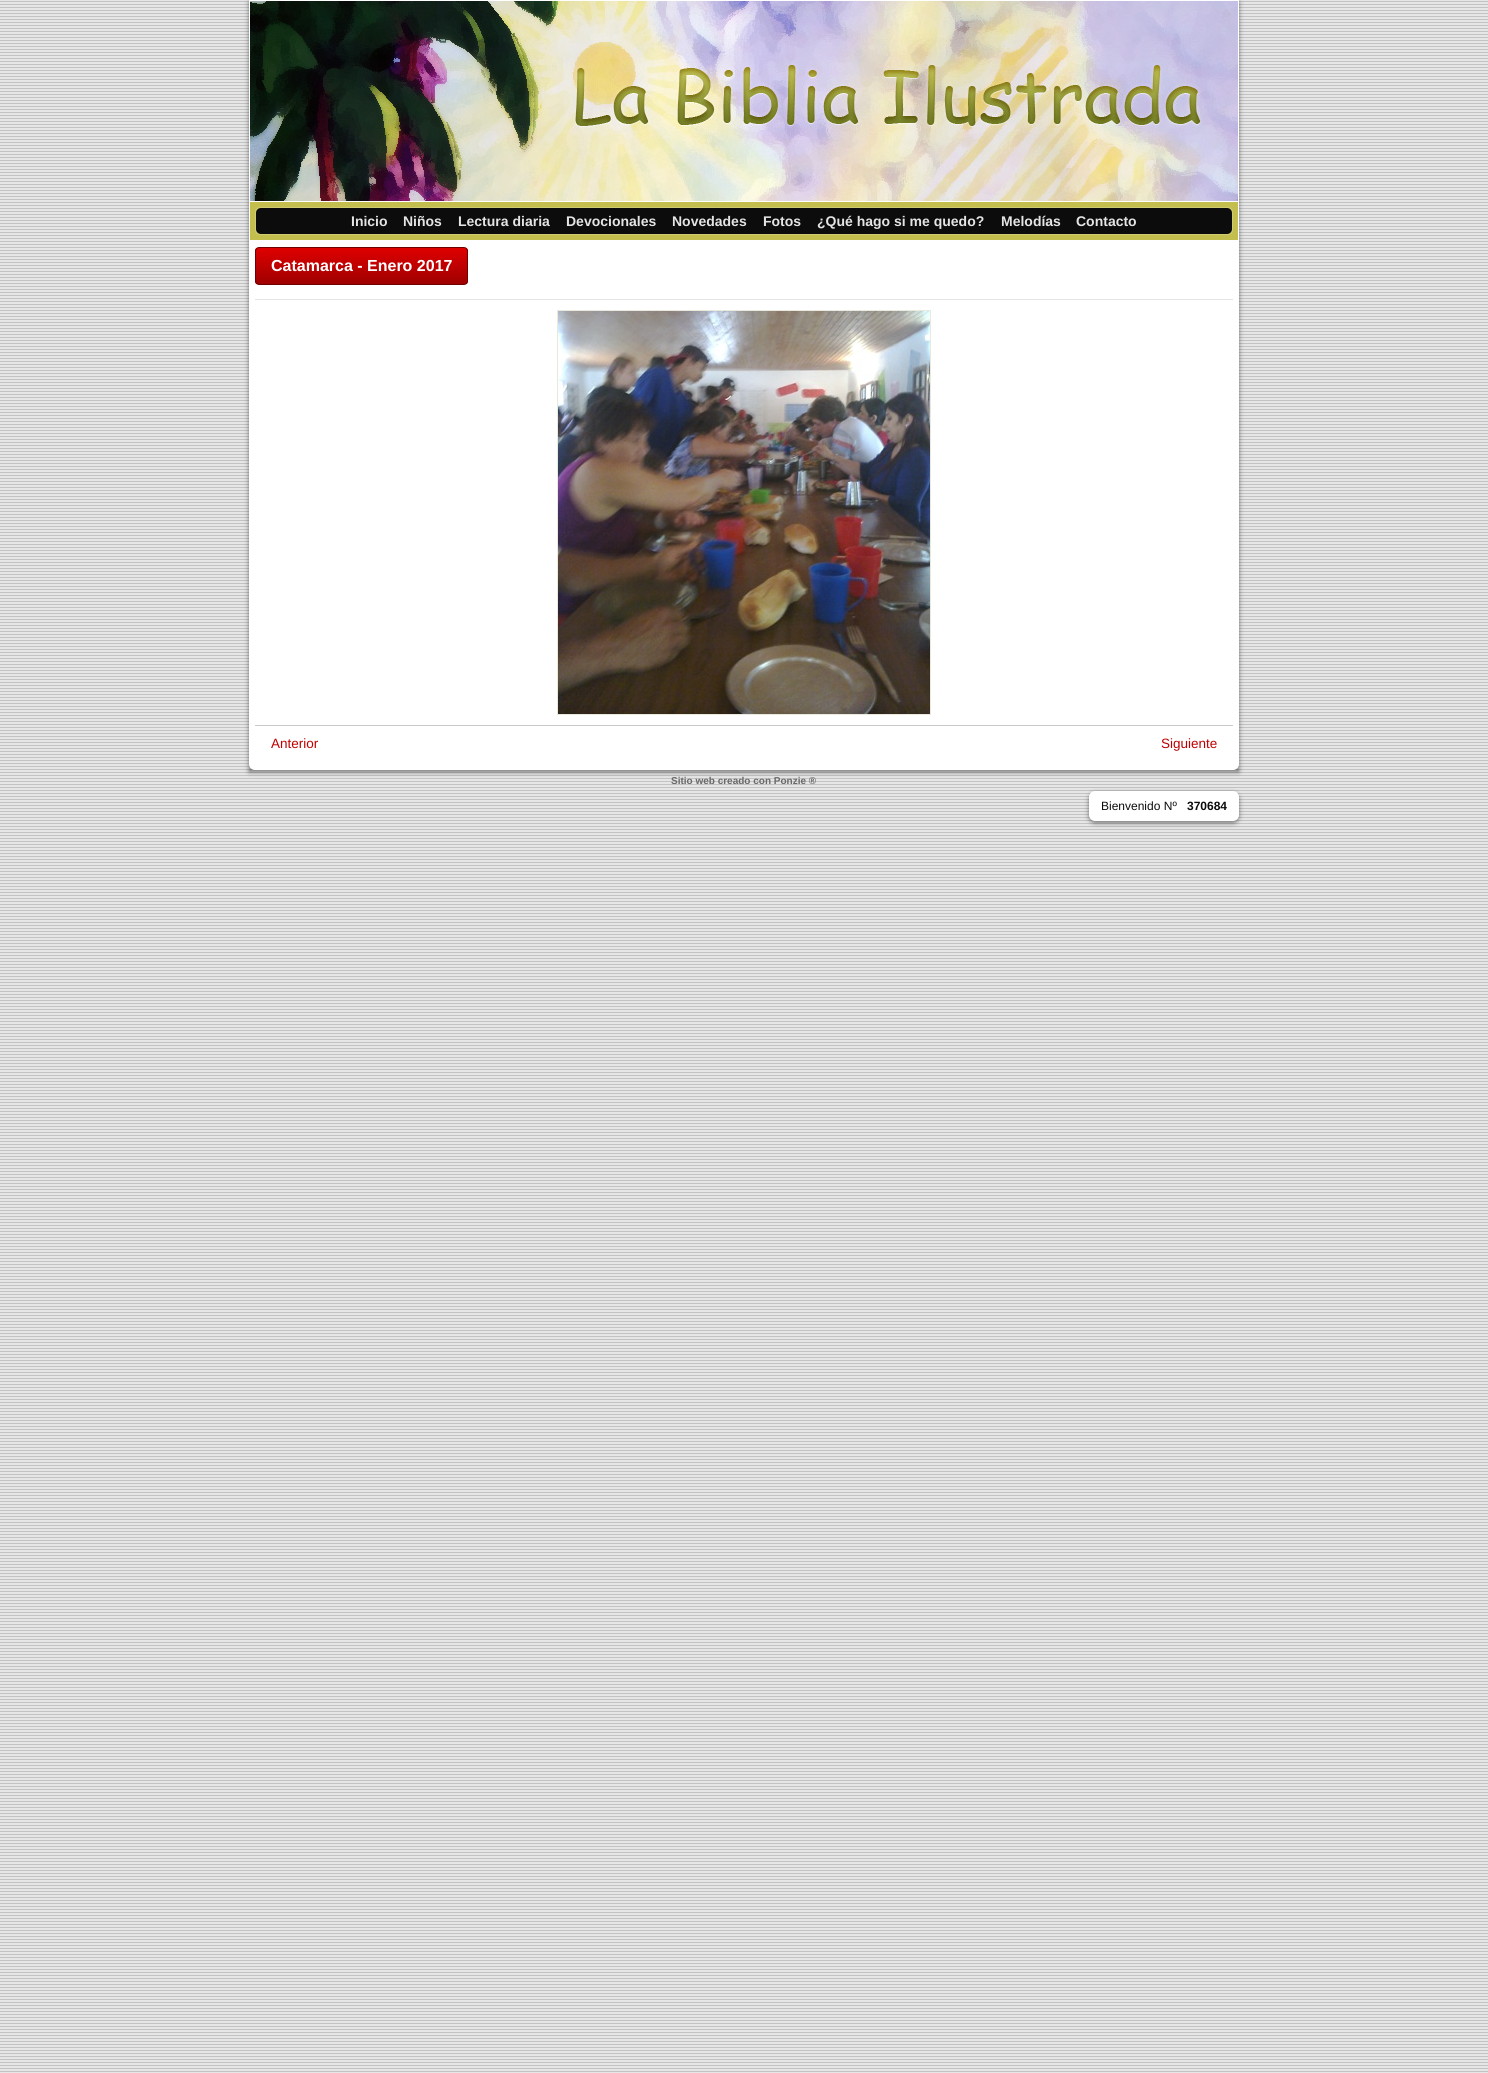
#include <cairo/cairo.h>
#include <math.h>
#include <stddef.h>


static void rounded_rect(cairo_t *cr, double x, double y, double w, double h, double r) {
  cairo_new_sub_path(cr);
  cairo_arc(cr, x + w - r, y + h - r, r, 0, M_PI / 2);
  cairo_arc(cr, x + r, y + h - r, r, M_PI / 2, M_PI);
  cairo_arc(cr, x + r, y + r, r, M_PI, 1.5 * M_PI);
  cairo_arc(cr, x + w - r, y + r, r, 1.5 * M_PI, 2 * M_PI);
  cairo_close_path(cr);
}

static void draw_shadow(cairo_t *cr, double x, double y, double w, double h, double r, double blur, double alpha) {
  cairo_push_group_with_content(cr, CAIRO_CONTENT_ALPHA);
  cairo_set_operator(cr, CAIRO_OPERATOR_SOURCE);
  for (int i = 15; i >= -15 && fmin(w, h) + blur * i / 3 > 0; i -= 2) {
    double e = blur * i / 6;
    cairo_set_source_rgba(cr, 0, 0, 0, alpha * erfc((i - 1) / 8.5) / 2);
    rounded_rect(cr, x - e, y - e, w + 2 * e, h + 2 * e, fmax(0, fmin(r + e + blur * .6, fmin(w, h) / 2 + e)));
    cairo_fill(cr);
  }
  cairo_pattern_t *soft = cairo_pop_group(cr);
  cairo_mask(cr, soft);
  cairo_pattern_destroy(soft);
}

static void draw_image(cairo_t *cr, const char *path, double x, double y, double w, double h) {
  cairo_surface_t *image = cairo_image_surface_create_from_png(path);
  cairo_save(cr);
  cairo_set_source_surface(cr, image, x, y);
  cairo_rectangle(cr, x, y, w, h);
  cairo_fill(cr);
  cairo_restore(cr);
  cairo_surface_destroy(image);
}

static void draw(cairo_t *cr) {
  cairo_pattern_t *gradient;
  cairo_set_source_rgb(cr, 230 / 255.0, 230 / 255.0, 230 / 255.0);
  cairo_paint(cr);
  draw_image(cr, "images/1.png", 0, 1, 1488, 2071);
  cairo_set_source_rgb(cr, 0, 0, 0);
  draw_shadow(cr, 249, 2, 990, 770, 0, 2.5, 0.5);
  cairo_set_source_rgb(cr, 1, 1, 1);
  cairo_rectangle(cr, 249, 0, 990, 241);
  cairo_fill(cr);
  draw_image(cr, "images/2.png", 250, 1, 988, 200);
  cairo_set_source_rgb(cr, 195 / 255.0, 190 / 255.0, 78 / 255.0);
  cairo_rectangle(cr, 250, 202, 988, 38);
  cairo_fill(cr);
  rounded_rect(cr, 255.5, 207.5, 977, 27, 4.5);
  cairo_set_source_rgb(cr, 207 / 255.0, 203 / 255.0, 113 / 255.0);
  cairo_set_line_width(cr, 1);
  cairo_stroke(cr);
  cairo_set_source_rgb(cr, 12 / 255.0, 12 / 255.0, 12 / 255.0);
  rounded_rect(cr, 256, 208, 976, 26, 5);
  cairo_fill(cr);
  cairo_set_source_rgb(cr, 1, 1, 1);
  cairo_new_path(cr);
  cairo_move_to(cr, 249, 241);
  cairo_line_to(cr, 1239, 241);
  cairo_line_to(cr, 1239, 764);
  cairo_curve_to(cr, 1239, 767.5, 1236.5, 770, 1233, 770);
  cairo_line_to(cr, 255, 770);
  cairo_curve_to(cr, 251.5, 770, 249, 767.5, 249, 764);
  cairo_close_path(cr);
  cairo_fill(cr);
  cairo_save(cr);
  rounded_rect(cr, 255, 247, 213, 38, 4);
  cairo_clip(cr);
  gradient = cairo_pattern_create_linear(256, 248, 256, 284);
  cairo_pattern_add_color_stop_rgba(gradient, 0, 223 / 255.0, 0, 0, 1);
  cairo_pattern_add_color_stop_rgba(gradient, 1, 159 / 255.0, 0, 0, 1);
  cairo_set_source(cr, gradient);
  cairo_pattern_destroy(gradient);
  cairo_rectangle(cr, 255, 248, 213, 36);
  cairo_fill(cr);
  cairo_restore(cr);
  rounded_rect(cr, 255.5, 247.5, 212, 37, 3.5);
  cairo_set_source_rgb(cr, 111 / 255.0, 0, 0);
  cairo_stroke(cr);
  cairo_set_source_rgb(cr, 229 / 255.0, 228 / 255.0, 228 / 255.0);
  cairo_rectangle(cr, 255, 299, 978, 1);
  cairo_fill(cr);
  cairo_rectangle(cr, 557.5, 310.5, 373, 404);
  cairo_set_source_rgb(cr, 234 / 255.0, 233 / 255.0, 221 / 255.0);
  cairo_stroke(cr);
  draw_image(cr, "images/3.png", 558, 311, 372, 403);
  cairo_set_source_rgb(cr, 201 / 255.0, 201 / 255.0, 201 / 255.0);
  cairo_rectangle(cr, 255, 725, 978, 1);
  cairo_fill(cr);
  cairo_set_source_rgb(cr, 0, 0, 0);
  draw_shadow(cr, 1089, 793, 150, 30, 6, 2.5, 0.5);
  cairo_set_source_rgb(cr, 1, 1, 1);
  rounded_rect(cr, 1089, 791, 150, 30, 6);
  cairo_fill(cr);
  cairo_select_font_face(cr, "Liberation Sans", CAIRO_FONT_SLANT_NORMAL, CAIRO_FONT_WEIGHT_BOLD);
  cairo_set_font_size(cr, 14);
  cairo_set_source_rgb(cr, 229 / 255.0, 228 / 255.0, 228 / 255.0);
  cairo_move_to(cr, 351, 226);
  cairo_show_text(cr, "Inicio");
  cairo_move_to(cr, 403, 226);
  cairo_show_text(cr, "Niños");
  cairo_move_to(cr, 458, 226);
  cairo_show_text(cr, "Lectura diaria");
  cairo_move_to(cr, 566, 226);
  cairo_show_text(cr, "Devocionales");
  cairo_move_to(cr, 672, 226);
  cairo_show_text(cr, "Novedades");
  cairo_move_to(cr, 763, 226);
  cairo_show_text(cr, "Fotos");
  cairo_move_to(cr, 817, 226);
  cairo_show_text(cr, "¿Qué hago si me quedo?");
  cairo_move_to(cr, 1001, 226);
  cairo_show_text(cr, "Melodías");
  cairo_move_to(cr, 1076, 226);
  cairo_show_text(cr, "Contacto");
  cairo_set_font_size(cr, 16);
  cairo_set_source_rgb(cr, 1, 1, 1);
  cairo_move_to(cr, 271, 271);
  cairo_show_text(cr, "Catamarca - Enero 2017");
  cairo_select_font_face(cr, "Liberation Sans", CAIRO_FONT_SLANT_NORMAL, CAIRO_FONT_WEIGHT_NORMAL);
  cairo_set_font_size(cr, 13.5);
  cairo_set_source_rgb(cr, 190 / 255.0, 0, 0);
  cairo_move_to(cr, 271, 748);
  cairo_show_text(cr, "Anterior");
  cairo_move_to(cr, 1161, 748);
  cairo_show_text(cr, "Siguiente");
  cairo_select_font_face(cr, "Liberation Sans", CAIRO_FONT_SLANT_NORMAL, CAIRO_FONT_WEIGHT_BOLD);
  cairo_set_font_size(cr, 10);
  cairo_set_source_rgb(cr, 105 / 255.0, 105 / 255.0, 105 / 255.0);
  cairo_move_to(cr, 671, 784);
  cairo_show_text(cr, "Sitio web creado con Ponzie ®");
  cairo_select_font_face(cr, "Liberation Sans", CAIRO_FONT_SLANT_NORMAL, CAIRO_FONT_WEIGHT_NORMAL);
  cairo_set_font_size(cr, 12);
  cairo_set_source_rgb(cr, 12 / 255.0, 12 / 255.0, 12 / 255.0);
  cairo_move_to(cr, 1101, 810);
  cairo_show_text(cr, "Bienvenido Nº");
  cairo_select_font_face(cr, "Liberation Sans", CAIRO_FONT_SLANT_NORMAL, CAIRO_FONT_WEIGHT_BOLD);
  cairo_move_to(cr, 1187, 810);
  cairo_show_text(cr, "370684");
}

int main(void) {
  cairo_surface_t *surface = cairo_image_surface_create(CAIRO_FORMAT_RGB24, 1488, 2073);
  cairo_t *cr = cairo_create(surface);
  cairo_font_options_t *options = cairo_font_options_create();
  cairo_font_options_set_hint_metrics(options, CAIRO_HINT_METRICS_OFF);
  cairo_font_options_set_hint_style(options, CAIRO_HINT_STYLE_NONE);
  cairo_set_font_options(cr, options);
  cairo_set_miter_limit(cr, 4);
  draw(cr);
  cairo_surface_write_to_png(surface, "out.png");
  cairo_font_options_destroy(options);
  cairo_destroy(cr);
  cairo_surface_destroy(surface);
  return 0;
}
